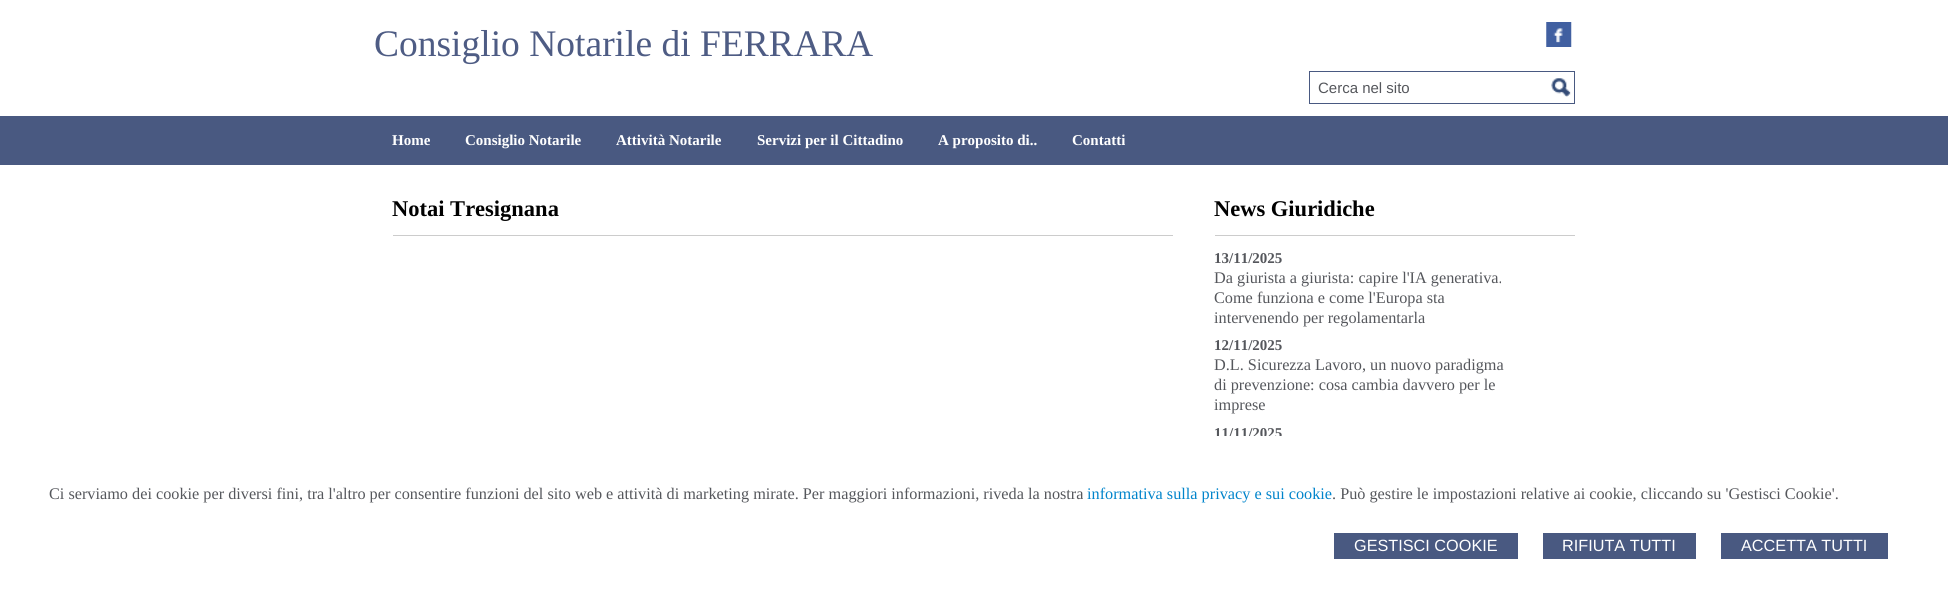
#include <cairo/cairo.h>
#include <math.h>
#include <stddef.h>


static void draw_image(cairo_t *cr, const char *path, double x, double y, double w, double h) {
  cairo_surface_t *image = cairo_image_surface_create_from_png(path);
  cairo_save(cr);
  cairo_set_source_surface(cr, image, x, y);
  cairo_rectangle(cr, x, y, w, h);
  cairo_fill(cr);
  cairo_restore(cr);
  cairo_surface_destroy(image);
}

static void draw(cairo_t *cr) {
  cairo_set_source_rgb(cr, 1, 1, 1);
  cairo_paint(cr);
  draw_image(cr, "images/1.png", 1546, 22, 26, 25);
  cairo_rectangle(cr, 1309.5, 71.5, 265, 32);
  cairo_set_source_rgb(cr, 73 / 255.0, 89 / 255.0, 129 / 255.0);
  cairo_set_line_width(cr, 1);
  cairo_stroke(cr);
  draw_image(cr, "images/2.png", 1551, 78, 20, 19);
  cairo_rectangle(cr, 0, 116, 1948, 49);
  cairo_fill(cr);
  cairo_set_source_rgb(cr, 204 / 255.0, 204 / 255.0, 204 / 255.0);
  cairo_rectangle(cr, 393, 235, 780, 1);
  cairo_fill(cr);
  cairo_rectangle(cr, 1215, 235, 360, 1);
  cairo_fill(cr);
  cairo_set_source_rgb(cr, 73 / 255.0, 89 / 255.0, 129 / 255.0);
  cairo_rectangle(cr, 1334, 533, 184, 26);
  cairo_fill(cr);
  cairo_rectangle(cr, 1543, 533, 153, 26);
  cairo_fill(cr);
  cairo_rectangle(cr, 1721, 533, 167, 26);
  cairo_fill(cr);
  cairo_select_font_face(cr, "Liberation Serif", CAIRO_FONT_SLANT_NORMAL, CAIRO_FONT_WEIGHT_NORMAL);
  cairo_set_font_size(cr, 37.5);
  cairo_set_source_rgb(cr, 78 / 255.0, 92 / 255.0, 132 / 255.0);
  cairo_move_to(cr, 374, 56);
  cairo_show_text(cr, "Consiglio Notarile di FERRARA");
  cairo_select_font_face(cr, "Liberation Sans", CAIRO_FONT_SLANT_NORMAL, CAIRO_FONT_WEIGHT_NORMAL);
  cairo_set_font_size(cr, 15);
  cairo_set_source_rgb(cr, 85 / 255.0, 87 / 255.0, 92 / 255.0);
  cairo_move_to(cr, 1318, 93);
  cairo_show_text(cr, "Cerca nel sito");
  cairo_select_font_face(cr, "Liberation Serif", CAIRO_FONT_SLANT_NORMAL, CAIRO_FONT_WEIGHT_BOLD);
  cairo_set_source_rgb(cr, 1, 1, 1);
  cairo_move_to(cr, 392, 145);
  cairo_show_text(cr, "Home");
  cairo_move_to(cr, 465, 145);
  cairo_show_text(cr, "Consiglio Notarile");
  cairo_move_to(cr, 616, 145);
  cairo_show_text(cr, "Attività Notarile");
  cairo_move_to(cr, 757, 145);
  cairo_show_text(cr, "Servizi per il Cittadino");
  cairo_move_to(cr, 938, 145);
  cairo_show_text(cr, "A proposito di..");
  cairo_move_to(cr, 1072, 145);
  cairo_show_text(cr, "Contatti");
  cairo_set_font_size(cr, 22.5);
  cairo_set_source_rgb(cr, 0, 0, 0);
  cairo_move_to(cr, 392, 216);
  cairo_show_text(cr, "Notai Tresignana");
  cairo_move_to(cr, 1214, 216);
  cairo_show_text(cr, "News Giuridiche");
  cairo_set_font_size(cr, 15);
  cairo_set_source_rgb(cr, 85 / 255.0, 87 / 255.0, 92 / 255.0);
  cairo_move_to(cr, 1214, 263);
  cairo_show_text(cr, "13/11/2025");
  cairo_select_font_face(cr, "Liberation Serif", CAIRO_FONT_SLANT_NORMAL, CAIRO_FONT_WEIGHT_NORMAL);
  cairo_set_font_size(cr, 16.25);
  cairo_move_to(cr, 1214, 283);
  cairo_show_text(cr, "Da giurista a giurista: capire l'IA generativa.");
  cairo_move_to(cr, 1214, 303);
  cairo_show_text(cr, "Come funziona e come l'Europa sta");
  cairo_move_to(cr, 1214, 323);
  cairo_show_text(cr, "intervenendo per regolamentarla");
  cairo_select_font_face(cr, "Liberation Serif", CAIRO_FONT_SLANT_NORMAL, CAIRO_FONT_WEIGHT_BOLD);
  cairo_set_font_size(cr, 15);
  cairo_move_to(cr, 1214, 350);
  cairo_show_text(cr, "12/11/2025");
  cairo_select_font_face(cr, "Liberation Serif", CAIRO_FONT_SLANT_NORMAL, CAIRO_FONT_WEIGHT_NORMAL);
  cairo_set_font_size(cr, 16.25);
  cairo_move_to(cr, 1214, 370);
  cairo_show_text(cr, "D.L. Sicurezza Lavoro, un nuovo paradigma");
  cairo_move_to(cr, 1214, 390);
  cairo_show_text(cr, "di prevenzione: cosa cambia davvero per le");
  cairo_move_to(cr, 1214, 410);
  cairo_show_text(cr, "imprese");
  cairo_select_font_face(cr, "Liberation Serif", CAIRO_FONT_SLANT_NORMAL, CAIRO_FONT_WEIGHT_BOLD);
  cairo_set_font_size(cr, 15);
  cairo_move_to(cr, 1214, 438);
  cairo_show_text(cr, "11/11/2025");
  cairo_set_source_rgb(cr, 1, 1, 1);
  cairo_rectangle(cr, 1215, 436, 67, 3);
  cairo_fill(cr);
  cairo_select_font_face(cr, "Liberation Serif", CAIRO_FONT_SLANT_NORMAL, CAIRO_FONT_WEIGHT_NORMAL);
  cairo_set_font_size(cr, 16.25);
  cairo_set_source_rgb(cr, 85 / 255.0, 87 / 255.0, 92 / 255.0);
  cairo_move_to(cr, 49, 499);
  cairo_show_text(cr, "Ci serviamo dei cookie per diversi fini, tra l'altro per consentire funzioni del sito web e attività di marketing mirate. Per maggiori informazioni, riveda la nostra");
  cairo_set_source_rgb(cr, 0, 132 / 255.0, 203 / 255.0);
  cairo_move_to(cr, 1087, 499);
  cairo_show_text(cr, "informativa sulla privacy e sui cookie");
  cairo_set_source_rgb(cr, 85 / 255.0, 87 / 255.0, 92 / 255.0);
  cairo_move_to(cr, 1332, 499);
  cairo_show_text(cr, ". Può gestire le impostazioni relative ai cookie, cliccando su 'Gestisci Cookie'.");
  cairo_select_font_face(cr, "Liberation Sans", CAIRO_FONT_SLANT_NORMAL, CAIRO_FONT_WEIGHT_NORMAL);
  cairo_set_source_rgb(cr, 1, 1, 1);
  cairo_move_to(cr, 1354, 551);
  cairo_show_text(cr, "GESTISCI COOKIE");
  cairo_move_to(cr, 1562, 551);
  cairo_show_text(cr, "RIFIUTA TUTTI");
  cairo_move_to(cr, 1741, 551);
  cairo_show_text(cr, "ACCETTA TUTTI");
}

int main(void) {
  cairo_surface_t *surface = cairo_image_surface_create(CAIRO_FORMAT_RGB24, 1948, 590);
  cairo_t *cr = cairo_create(surface);
  cairo_font_options_t *options = cairo_font_options_create();
  cairo_font_options_set_hint_metrics(options, CAIRO_HINT_METRICS_OFF);
  cairo_font_options_set_hint_style(options, CAIRO_HINT_STYLE_NONE);
  cairo_set_font_options(cr, options);
  cairo_set_miter_limit(cr, 4);
  draw(cr);
  cairo_surface_write_to_png(surface, "out.png");
  cairo_font_options_destroy(options);
  cairo_destroy(cr);
  cairo_surface_destroy(surface);
  return 0;
}
